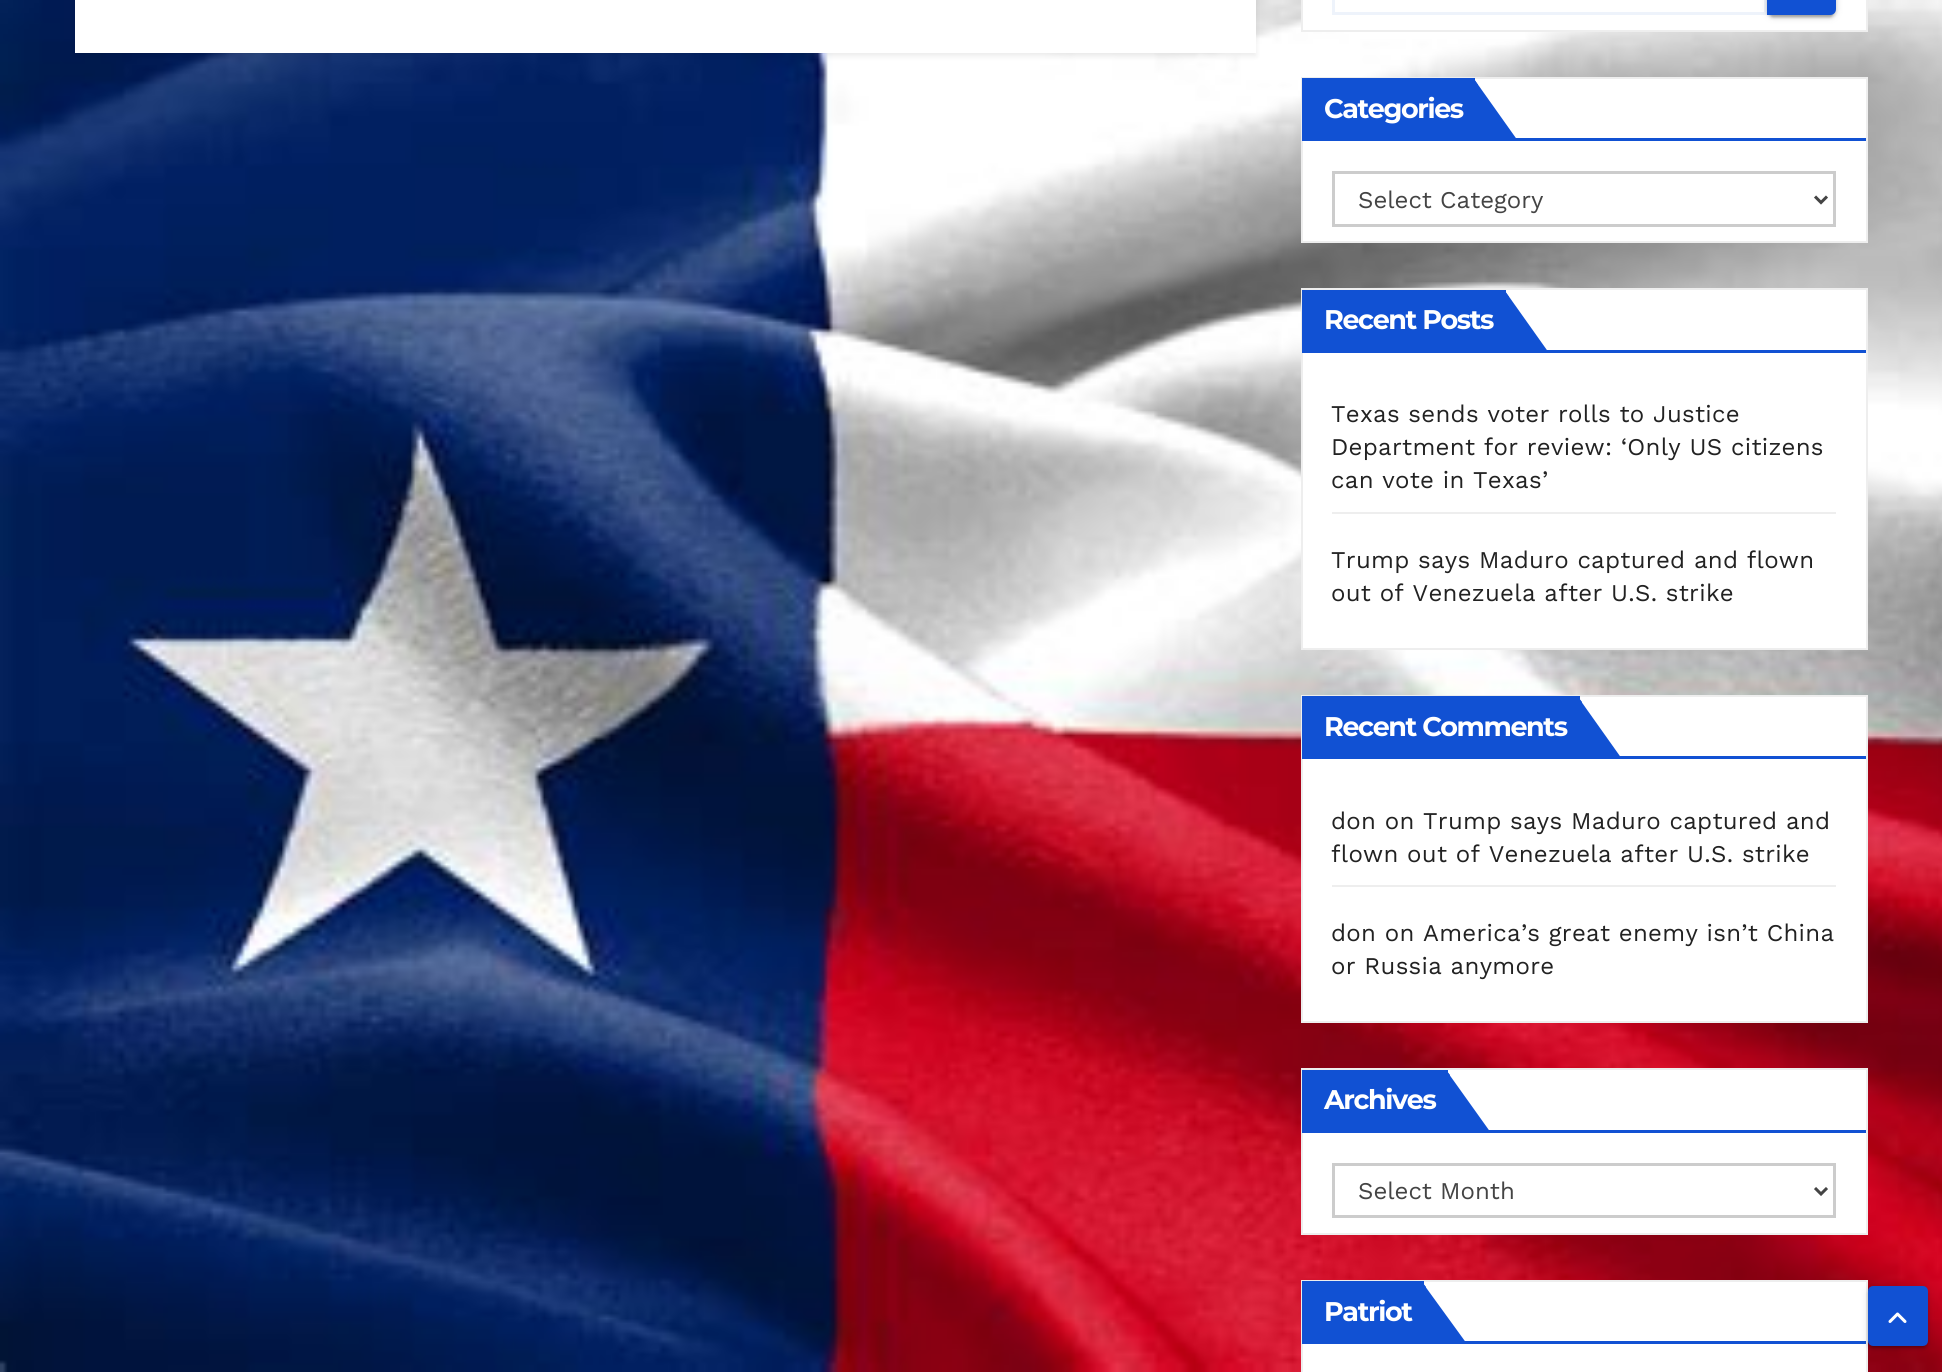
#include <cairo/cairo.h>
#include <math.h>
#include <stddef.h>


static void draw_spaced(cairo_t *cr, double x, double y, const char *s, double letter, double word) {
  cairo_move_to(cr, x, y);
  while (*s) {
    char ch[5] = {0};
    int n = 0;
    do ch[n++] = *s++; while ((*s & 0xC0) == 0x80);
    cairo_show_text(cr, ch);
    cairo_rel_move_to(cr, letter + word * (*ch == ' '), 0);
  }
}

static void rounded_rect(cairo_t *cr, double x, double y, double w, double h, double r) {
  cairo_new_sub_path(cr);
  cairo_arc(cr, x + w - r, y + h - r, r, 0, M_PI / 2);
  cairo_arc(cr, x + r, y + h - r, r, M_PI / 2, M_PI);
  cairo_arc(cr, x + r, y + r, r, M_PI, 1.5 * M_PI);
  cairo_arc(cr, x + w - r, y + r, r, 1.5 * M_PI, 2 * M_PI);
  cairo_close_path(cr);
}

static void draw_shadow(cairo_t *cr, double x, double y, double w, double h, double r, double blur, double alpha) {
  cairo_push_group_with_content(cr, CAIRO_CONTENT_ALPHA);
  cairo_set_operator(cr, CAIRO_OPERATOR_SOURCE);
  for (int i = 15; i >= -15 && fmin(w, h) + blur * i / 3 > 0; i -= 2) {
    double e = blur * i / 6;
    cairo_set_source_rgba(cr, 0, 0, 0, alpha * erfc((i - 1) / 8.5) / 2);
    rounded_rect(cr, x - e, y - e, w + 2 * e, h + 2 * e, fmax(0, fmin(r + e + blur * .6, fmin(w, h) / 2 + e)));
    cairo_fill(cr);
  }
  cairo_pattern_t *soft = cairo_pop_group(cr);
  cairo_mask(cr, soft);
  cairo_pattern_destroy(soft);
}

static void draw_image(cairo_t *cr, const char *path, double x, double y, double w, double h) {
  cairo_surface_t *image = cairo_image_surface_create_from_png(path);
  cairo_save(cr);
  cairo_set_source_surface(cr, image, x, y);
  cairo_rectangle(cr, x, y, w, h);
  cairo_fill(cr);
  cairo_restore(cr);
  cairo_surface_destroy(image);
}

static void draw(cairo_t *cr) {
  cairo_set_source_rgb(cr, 1, 1, 1);
  cairo_paint(cr);
  draw_image(cr, "images/1.png", 0, 0, 1942, 1372);
  cairo_set_source_rgb(cr, 0, 0, 0);
  draw_shadow(cr, 75, -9, 1181, 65, 0, 3, 0.08);
  cairo_set_source_rgb(cr, 1, 1, 1);
  cairo_rectangle(cr, 75, 0, 1181, 53);
  cairo_fill(cr);
  cairo_rectangle(cr, 1302, -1, 565, 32);
  cairo_fill_preserve(cr);
  cairo_set_source_rgb(cr, 238 / 255.0, 238 / 255.0, 238 / 255.0);
  cairo_stroke(cr);
  cairo_rectangle(cr, 1333.5, -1.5, 432, 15);
  cairo_set_source_rgb(cr, 238 / 255.0, 243 / 255.0, 251 / 255.0);
  cairo_set_line_width(cr, 3);
  cairo_stroke(cr);
  cairo_set_source_rgb(cr, 0, 0, 0);
  draw_shadow(cr, 1767, -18, 69, 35, 6, 4, 0.12);
  draw_shadow(cr, 1770, -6, 63, 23, 3, 1, 0.2);
  draw_shadow(cr, 1767, -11, 69, 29, 6, 1.5, 0.14);
  cairo_set_source_rgb(cr, 17 / 255.0, 81 / 255.0, 211 / 255.0);
  cairo_new_path(cr);
  cairo_move_to(cr, 1767, -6);
  cairo_line_to(cr, 1830, -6);
  cairo_curve_to(cr, 1833.5, -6, 1836, -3.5, 1836, 0);
  cairo_line_to(cr, 1836, 9);
  cairo_curve_to(cr, 1836, 12.5, 1833.5, 15, 1830, 15);
  cairo_line_to(cr, 1767, 15);
  cairo_close_path(cr);
  cairo_fill(cr);
  cairo_set_source_rgb(cr, 1, 1, 1);
  cairo_rectangle(cr, 1302, 78, 565, 164);
  cairo_fill_preserve(cr);
  cairo_set_source_rgb(cr, 238 / 255.0, 238 / 255.0, 238 / 255.0);
  cairo_set_line_width(cr, 2);
  cairo_stroke(cr);
  cairo_set_source_rgb(cr, 17 / 255.0, 81 / 255.0, 211 / 255.0);
  cairo_rectangle(cr, 1302, 138, 564, 3);
  cairo_fill(cr);
  cairo_rectangle(cr, 1302, 78, 173, 60);
  cairo_fill(cr);
  cairo_new_path(cr);
  cairo_move_to(cr, 1474, 79);
  cairo_line_to(cr, 1518, 141);
  cairo_line_to(cr, 1474, 141);
  cairo_close_path(cr);
  cairo_fill(cr);
  cairo_new_path(cr);
  cairo_move_to(cr, 1474, 79);
  cairo_line_to(cr, 1478, 85);
  cairo_line_to(cr, 1478, 136);
  cairo_line_to(cr, 1474, 140);
  cairo_close_path(cr);
  cairo_fill(cr);
  cairo_rectangle(cr, 1333.5, 172.5, 501, 53);
  cairo_set_source_rgb(cr, 204 / 255.0, 204 / 255.0, 204 / 255.0);
  cairo_set_line_width(cr, 3);
  cairo_stroke(cr);
  cairo_new_path(cr);
  cairo_move_to(cr, 1815, 196.5);
  cairo_line_to(cr, 1821, 202.5);
  cairo_line_to(cr, 1827, 196.5);
  cairo_set_source_rgb(cr, 68 / 255.0, 68 / 255.0, 68 / 255.0);
  cairo_stroke(cr);
  cairo_set_source_rgb(cr, 1, 1, 1);
  cairo_rectangle(cr, 1302, 289, 565, 360);
  cairo_fill_preserve(cr);
  cairo_set_source_rgb(cr, 238 / 255.0, 238 / 255.0, 238 / 255.0);
  cairo_set_line_width(cr, 2);
  cairo_stroke(cr);
  cairo_set_source_rgb(cr, 17 / 255.0, 81 / 255.0, 211 / 255.0);
  cairo_rectangle(cr, 1302, 350, 564, 3);
  cairo_fill(cr);
  cairo_rectangle(cr, 1302, 290, 204, 60);
  cairo_fill(cr);
  cairo_new_path(cr);
  cairo_move_to(cr, 1549, 353);
  cairo_line_to(cr, 1505, 353);
  cairo_line_to(cr, 1505, 291);
  cairo_close_path(cr);
  cairo_fill(cr);
  cairo_new_path(cr);
  cairo_move_to(cr, 1504, 290);
  cairo_line_to(cr, 1509, 297);
  cairo_line_to(cr, 1509, 348);
  cairo_line_to(cr, 1504, 352);
  cairo_close_path(cr);
  cairo_fill(cr);
  cairo_set_source_rgb(cr, 238 / 255.0, 238 / 255.0, 238 / 255.0);
  cairo_rectangle(cr, 1332, 512, 504, 2);
  cairo_fill(cr);
  cairo_set_source_rgb(cr, 1, 1, 1);
  cairo_rectangle(cr, 1302, 696, 565, 326);
  cairo_fill_preserve(cr);
  cairo_set_source_rgb(cr, 238 / 255.0, 238 / 255.0, 238 / 255.0);
  cairo_stroke(cr);
  cairo_set_source_rgb(cr, 17 / 255.0, 81 / 255.0, 211 / 255.0);
  cairo_rectangle(cr, 1302, 756, 564, 3);
  cairo_fill(cr);
  cairo_rectangle(cr, 1302, 696, 278, 60);
  cairo_fill(cr);
  cairo_new_path(cr);
  cairo_move_to(cr, 1622, 759);
  cairo_line_to(cr, 1578, 759);
  cairo_line_to(cr, 1578, 697);
  cairo_close_path(cr);
  cairo_fill(cr);
  cairo_new_path(cr);
  cairo_move_to(cr, 1578, 759);
  cairo_line_to(cr, 1582, 754);
  cairo_line_to(cr, 1582, 702);
  cairo_line_to(cr, 1578, 697);
  cairo_close_path(cr);
  cairo_fill(cr);
  cairo_set_source_rgb(cr, 238 / 255.0, 238 / 255.0, 238 / 255.0);
  cairo_rectangle(cr, 1332, 885, 504, 2);
  cairo_fill(cr);
  cairo_set_source_rgb(cr, 1, 1, 1);
  cairo_rectangle(cr, 1302, 1069, 565, 165);
  cairo_fill_preserve(cr);
  cairo_set_source_rgb(cr, 238 / 255.0, 238 / 255.0, 238 / 255.0);
  cairo_stroke(cr);
  cairo_set_source_rgb(cr, 17 / 255.0, 81 / 255.0, 211 / 255.0);
  cairo_rectangle(cr, 1302, 1130, 564, 3);
  cairo_fill(cr);
  cairo_rectangle(cr, 1302, 1070, 146, 60);
  cairo_fill(cr);
  cairo_new_path(cr);
  cairo_move_to(cr, 1446, 1070);
  cairo_line_to(cr, 1491, 1133);
  cairo_line_to(cr, 1446, 1133);
  cairo_close_path(cr);
  cairo_fill(cr);
  cairo_new_path(cr);
  cairo_move_to(cr, 1450, 1075);
  cairo_line_to(cr, 1450, 1128);
  cairo_line_to(cr, 1446, 1132);
  cairo_line_to(cr, 1446, 1070);
  cairo_close_path(cr);
  cairo_fill(cr);
  cairo_rectangle(cr, 1333.5, 1164.5, 501, 52);
  cairo_set_source_rgb(cr, 204 / 255.0, 204 / 255.0, 204 / 255.0);
  cairo_set_line_width(cr, 3);
  cairo_stroke(cr);
  cairo_new_path(cr);
  cairo_move_to(cr, 1815, 1188);
  cairo_line_to(cr, 1821, 1194);
  cairo_line_to(cr, 1827, 1188);
  cairo_set_source_rgb(cr, 68 / 255.0, 68 / 255.0, 68 / 255.0);
  cairo_stroke(cr);
  cairo_set_source_rgb(cr, 1, 1, 1);
  cairo_rectangle(cr, 1302, 1281, 565, 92);
  cairo_fill_preserve(cr);
  cairo_set_source_rgb(cr, 238 / 255.0, 238 / 255.0, 238 / 255.0);
  cairo_set_line_width(cr, 2);
  cairo_stroke(cr);
  cairo_set_source_rgb(cr, 17 / 255.0, 81 / 255.0, 211 / 255.0);
  cairo_rectangle(cr, 1302, 1341, 564, 3);
  cairo_fill(cr);
  cairo_rectangle(cr, 1302, 1281, 122, 60);
  cairo_fill(cr);
  cairo_new_path(cr);
  cairo_move_to(cr, 1422, 1282);
  cairo_line_to(cr, 1467, 1344);
  cairo_line_to(cr, 1422, 1344);
  cairo_close_path(cr);
  cairo_fill(cr);
  cairo_new_path(cr);
  cairo_move_to(cr, 1422, 1282);
  cairo_line_to(cr, 1426, 1287);
  cairo_line_to(cr, 1426, 1340);
  cairo_line_to(cr, 1422, 1344);
  cairo_close_path(cr);
  cairo_fill(cr);
  cairo_set_source_rgb(cr, 0, 0, 0);
  draw_shadow(cr, 1868, 1287, 60, 60, 5, 4, 0.12);
  draw_shadow(cr, 1871, 1293, 54, 54, 1.5, 1, 0.2);
  draw_shadow(cr, 1868, 1289, 60, 60, 5, 1.5, 0.14);
  cairo_set_source_rgb(cr, 17 / 255.0, 81 / 255.0, 211 / 255.0);
  rounded_rect(cr, 1869.5, 1287.5, 57, 57, 3.5);
  cairo_fill_preserve(cr);
  cairo_set_line_width(cr, 3);
  cairo_stroke(cr);
  draw_image(cr, "images/2.png", 1888, 1312, 19, 11);
  cairo_select_font_face(cr, "Montserrat", CAIRO_FONT_SLANT_NORMAL, CAIRO_FONT_WEIGHT_BOLD);
  cairo_set_font_size(cr, 27);
  cairo_set_source_rgb(cr, 1, 1, 1);
  draw_spaced(cr, 1324, 118, "Categories", -1.4, 0);
  cairo_select_font_face(cr, "Work Sans", CAIRO_FONT_SLANT_NORMAL, CAIRO_FONT_WEIGHT_NORMAL);
  cairo_set_font_size(cr, 24);
  cairo_set_source_rgb(cr, 68 / 255.0, 68 / 255.0, 68 / 255.0);
  cairo_move_to(cr, 1358, 208);
  cairo_show_text(cr, "Select Category");
  cairo_select_font_face(cr, "Montserrat", CAIRO_FONT_SLANT_NORMAL, CAIRO_FONT_WEIGHT_BOLD);
  cairo_set_font_size(cr, 27);
  cairo_set_source_rgb(cr, 1, 1, 1);
  draw_spaced(cr, 1324, 329, "Recent Posts", -1.4, 0);
  cairo_select_font_face(cr, "Work Sans", CAIRO_FONT_SLANT_NORMAL, CAIRO_FONT_WEIGHT_NORMAL);
  cairo_set_font_size(cr, 24);
  cairo_set_source_rgb(cr, 34 / 255.0, 34 / 255.0, 34 / 255.0);
  draw_spaced(cr, 1331, 422, "Texas sends voter rolls to Justice", 0.3, 0);
  draw_spaced(cr, 1331, 455, "Department for review: ‘Only US citizens", 0.3, 0);
  draw_spaced(cr, 1331, 488, "can vote in Texas’", 0.3, 0);
  draw_spaced(cr, 1331, 568, "Trump says Maduro captured and flown", 0.3, 0);
  draw_spaced(cr, 1331, 601, "out of Venezuela after U.S. strike", 0.3, 0);
  cairo_select_font_face(cr, "Montserrat", CAIRO_FONT_SLANT_NORMAL, CAIRO_FONT_WEIGHT_BOLD);
  cairo_set_font_size(cr, 27);
  cairo_set_source_rgb(cr, 1, 1, 1);
  draw_spaced(cr, 1324, 736, "Recent Comments", -1.4, 0);
  cairo_select_font_face(cr, "Work Sans", CAIRO_FONT_SLANT_NORMAL, CAIRO_FONT_WEIGHT_NORMAL);
  cairo_set_font_size(cr, 24);
  cairo_set_source_rgb(cr, 34 / 255.0, 34 / 255.0, 34 / 255.0);
  draw_spaced(cr, 1331, 829, "don on Trump says Maduro captured and", 0.3, 0);
  draw_spaced(cr, 1331, 862, "flown out of Venezuela after U.S. strike", 0.3, 0);
  draw_spaced(cr, 1331, 941, "don on America’s great enemy isn’t China", 0.3, 0);
  draw_spaced(cr, 1331, 974, "or Russia anymore", 0.3, 0);
  cairo_select_font_face(cr, "Montserrat", CAIRO_FONT_SLANT_NORMAL, CAIRO_FONT_WEIGHT_BOLD);
  cairo_set_font_size(cr, 27);
  cairo_set_source_rgb(cr, 1, 1, 1);
  draw_spaced(cr, 1324, 1109, "Archives", -1.4, 0);
  cairo_select_font_face(cr, "Work Sans", CAIRO_FONT_SLANT_NORMAL, CAIRO_FONT_WEIGHT_NORMAL);
  cairo_set_font_size(cr, 24);
  cairo_set_source_rgb(cr, 68 / 255.0, 68 / 255.0, 68 / 255.0);
  cairo_move_to(cr, 1358, 1199);
  cairo_show_text(cr, "Select Month");
  cairo_select_font_face(cr, "Montserrat", CAIRO_FONT_SLANT_NORMAL, CAIRO_FONT_WEIGHT_BOLD);
  cairo_set_font_size(cr, 27);
  cairo_set_source_rgb(cr, 1, 1, 1);
  draw_spaced(cr, 1324, 1321, "Patriot", -1.4, 0);
}

int main(void) {
  cairo_surface_t *surface = cairo_image_surface_create(CAIRO_FORMAT_RGB24, 1942, 1372);
  cairo_t *cr = cairo_create(surface);
  cairo_font_options_t *options = cairo_font_options_create();
  cairo_font_options_set_hint_metrics(options, CAIRO_HINT_METRICS_OFF);
  cairo_font_options_set_hint_style(options, CAIRO_HINT_STYLE_NONE);
  cairo_set_font_options(cr, options);
  cairo_set_miter_limit(cr, 4);
  draw(cr);
  cairo_surface_write_to_png(surface, "out.png");
  cairo_font_options_destroy(options);
  cairo_destroy(cr);
  cairo_surface_destroy(surface);
  return 0;
}
